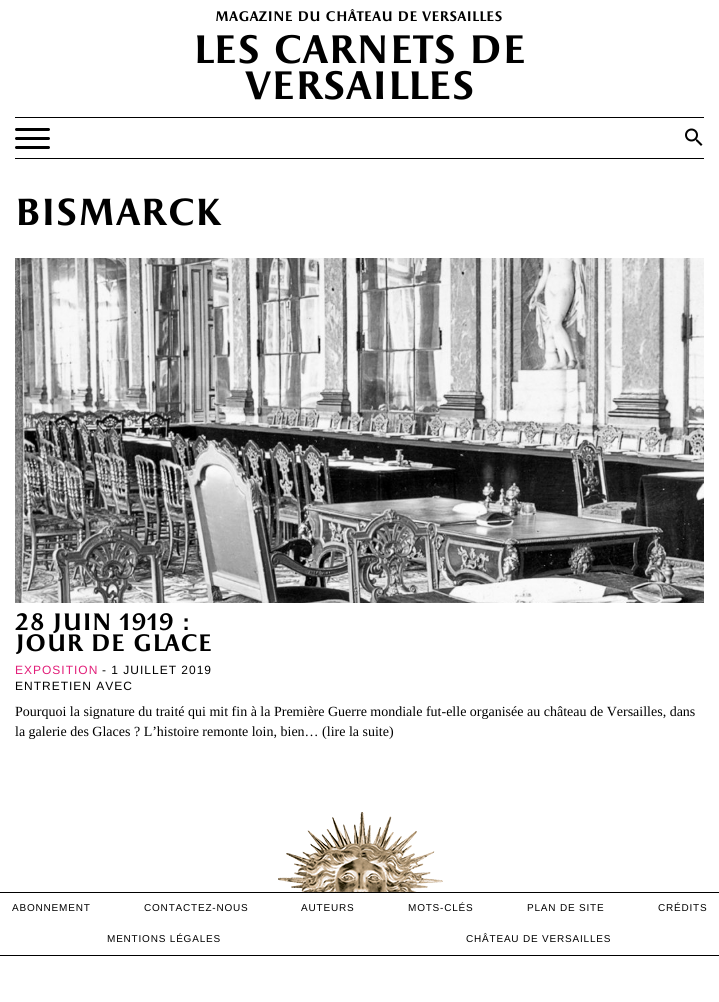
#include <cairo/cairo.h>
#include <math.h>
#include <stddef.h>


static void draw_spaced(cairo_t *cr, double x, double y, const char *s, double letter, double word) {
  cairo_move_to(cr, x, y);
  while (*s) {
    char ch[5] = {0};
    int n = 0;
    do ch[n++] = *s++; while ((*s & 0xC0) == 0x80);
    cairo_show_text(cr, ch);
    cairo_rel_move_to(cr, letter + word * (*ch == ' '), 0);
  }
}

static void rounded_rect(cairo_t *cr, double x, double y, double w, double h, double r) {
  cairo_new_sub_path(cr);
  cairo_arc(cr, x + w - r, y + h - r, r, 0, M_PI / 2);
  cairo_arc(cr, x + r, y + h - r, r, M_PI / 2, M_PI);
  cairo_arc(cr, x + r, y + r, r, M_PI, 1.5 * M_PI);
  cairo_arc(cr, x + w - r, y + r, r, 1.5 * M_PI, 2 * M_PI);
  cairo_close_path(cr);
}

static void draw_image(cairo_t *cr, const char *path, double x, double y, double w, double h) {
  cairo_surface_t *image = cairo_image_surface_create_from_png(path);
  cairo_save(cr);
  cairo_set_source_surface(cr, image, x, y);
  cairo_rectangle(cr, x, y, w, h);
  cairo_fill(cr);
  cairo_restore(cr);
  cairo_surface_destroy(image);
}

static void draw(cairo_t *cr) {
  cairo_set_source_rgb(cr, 1, 1, 1);
  cairo_paint(cr);
  cairo_set_source_rgb(cr, 0, 0, 0);
  cairo_rectangle(cr, 15, 117, 689, 1);
  cairo_fill(cr);
  cairo_rectangle(cr, 15, 158, 689, 1);
  cairo_fill(cr);
  rounded_rect(cr, 15, 128, 35, 3, 1.5);
  cairo_fill(cr);
  rounded_rect(cr, 15, 137, 35, 3, 1.5);
  cairo_fill(cr);
  rounded_rect(cr, 15, 146, 35, 3, 1.5);
  cairo_fill(cr);
  draw_image(cr, "images/1.png", 685, 128, 18, 18);
  draw_image(cr, "images/2.png", 15, 258, 689, 345);
  draw_image(cr, "images/3.png", 278, 812, 165, 80);
  cairo_rectangle(cr, 0, 892, 719, 1);
  cairo_fill(cr);
  cairo_rectangle(cr, 0, 955, 719, 1);
  cairo_fill(cr);
  cairo_select_font_face(cr, "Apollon", CAIRO_FONT_SLANT_NORMAL, CAIRO_FONT_WEIGHT_BOLD);
  cairo_set_font_size(cr, 14);
  cairo_move_to(cr, 215, 21);
  cairo_show_text(cr, "magazine du château de versailles");
  cairo_set_font_size(cr, 40);
  cairo_move_to(cr, 193, 63);
  cairo_show_text(cr, "les carnets de");
  cairo_move_to(cr, 245, 99);
  cairo_show_text(cr, "versailles");
  cairo_set_font_size(cr, 38);
  cairo_move_to(cr, 15, 225);
  cairo_show_text(cr, "bismarck");
  cairo_set_font_size(cr, 24);
  cairo_move_to(cr, 15, 630);
  cairo_show_text(cr, "28 juin 1919 :");
  cairo_move_to(cr, 15, 651);
  cairo_show_text(cr, "jour de glace");
  cairo_select_font_face(cr, "Liberation Sans", CAIRO_FONT_SLANT_NORMAL, CAIRO_FONT_WEIGHT_NORMAL);
  cairo_set_font_size(cr, 12);
  cairo_set_source_rgb(cr, 226 / 255.0, 30 / 255.0, 121 / 255.0);
  draw_spaced(cr, 15, 674, "EXPOSITION", 1, 0);
  cairo_set_source_rgb(cr, 0, 0, 0);
  draw_spaced(cr, 102, 674, "- 1 JUILLET 2019", 1, 0);
  draw_spaced(cr, 15, 690, "ENTRETIEN AVEC", 1, 0);
  cairo_select_font_face(cr, "Liberation Serif", CAIRO_FONT_SLANT_NORMAL, CAIRO_FONT_WEIGHT_NORMAL);
  cairo_set_font_size(cr, 14);
  cairo_move_to(cr, 15, 716);
  cairo_show_text(cr, "Pourquoi la signature du traité qui mit fin à la Première Guerre mondiale fut-elle organisée au château de Versailles, dans");
  cairo_move_to(cr, 15, 736);
  cairo_show_text(cr, "la galerie des Glaces ? L’histoire remonte loin, bien… (lire la suite)");
  cairo_select_font_face(cr, "Liberation Sans", CAIRO_FONT_SLANT_NORMAL, CAIRO_FONT_WEIGHT_NORMAL);
  cairo_set_font_size(cr, 10);
  draw_spaced(cr, 12, 911, "ABONNEMENT", 0.8, 0);
  draw_spaced(cr, 144, 911, "CONTACTEZ-NOUS", 0.8, 0);
  draw_spaced(cr, 301, 911, "AUTEURS", 0.8, 0);
  draw_spaced(cr, 408, 911, "MOTS-CLÉS", 0.8, 0);
  draw_spaced(cr, 527, 911, "PLAN DE SITE", 0.8, 0);
  draw_spaced(cr, 658, 911, "CRÉDITS", 0.8, 0);
  draw_spaced(cr, 107, 942, "MENTIONS LÉGALES", 0.8, 0);
  draw_spaced(cr, 466, 942, "CHÂTEAU DE VERSAILLES", 0.8, 0);
}

int main(void) {
  cairo_surface_t *surface = cairo_image_surface_create(CAIRO_FORMAT_RGB24, 719, 1002);
  cairo_t *cr = cairo_create(surface);
  cairo_font_options_t *options = cairo_font_options_create();
  cairo_font_options_set_hint_metrics(options, CAIRO_HINT_METRICS_OFF);
  cairo_font_options_set_hint_style(options, CAIRO_HINT_STYLE_NONE);
  cairo_set_font_options(cr, options);
  cairo_set_miter_limit(cr, 4);
  draw(cr);
  cairo_surface_write_to_png(surface, "out.png");
  cairo_font_options_destroy(options);
  cairo_destroy(cr);
  cairo_surface_destroy(surface);
  return 0;
}
